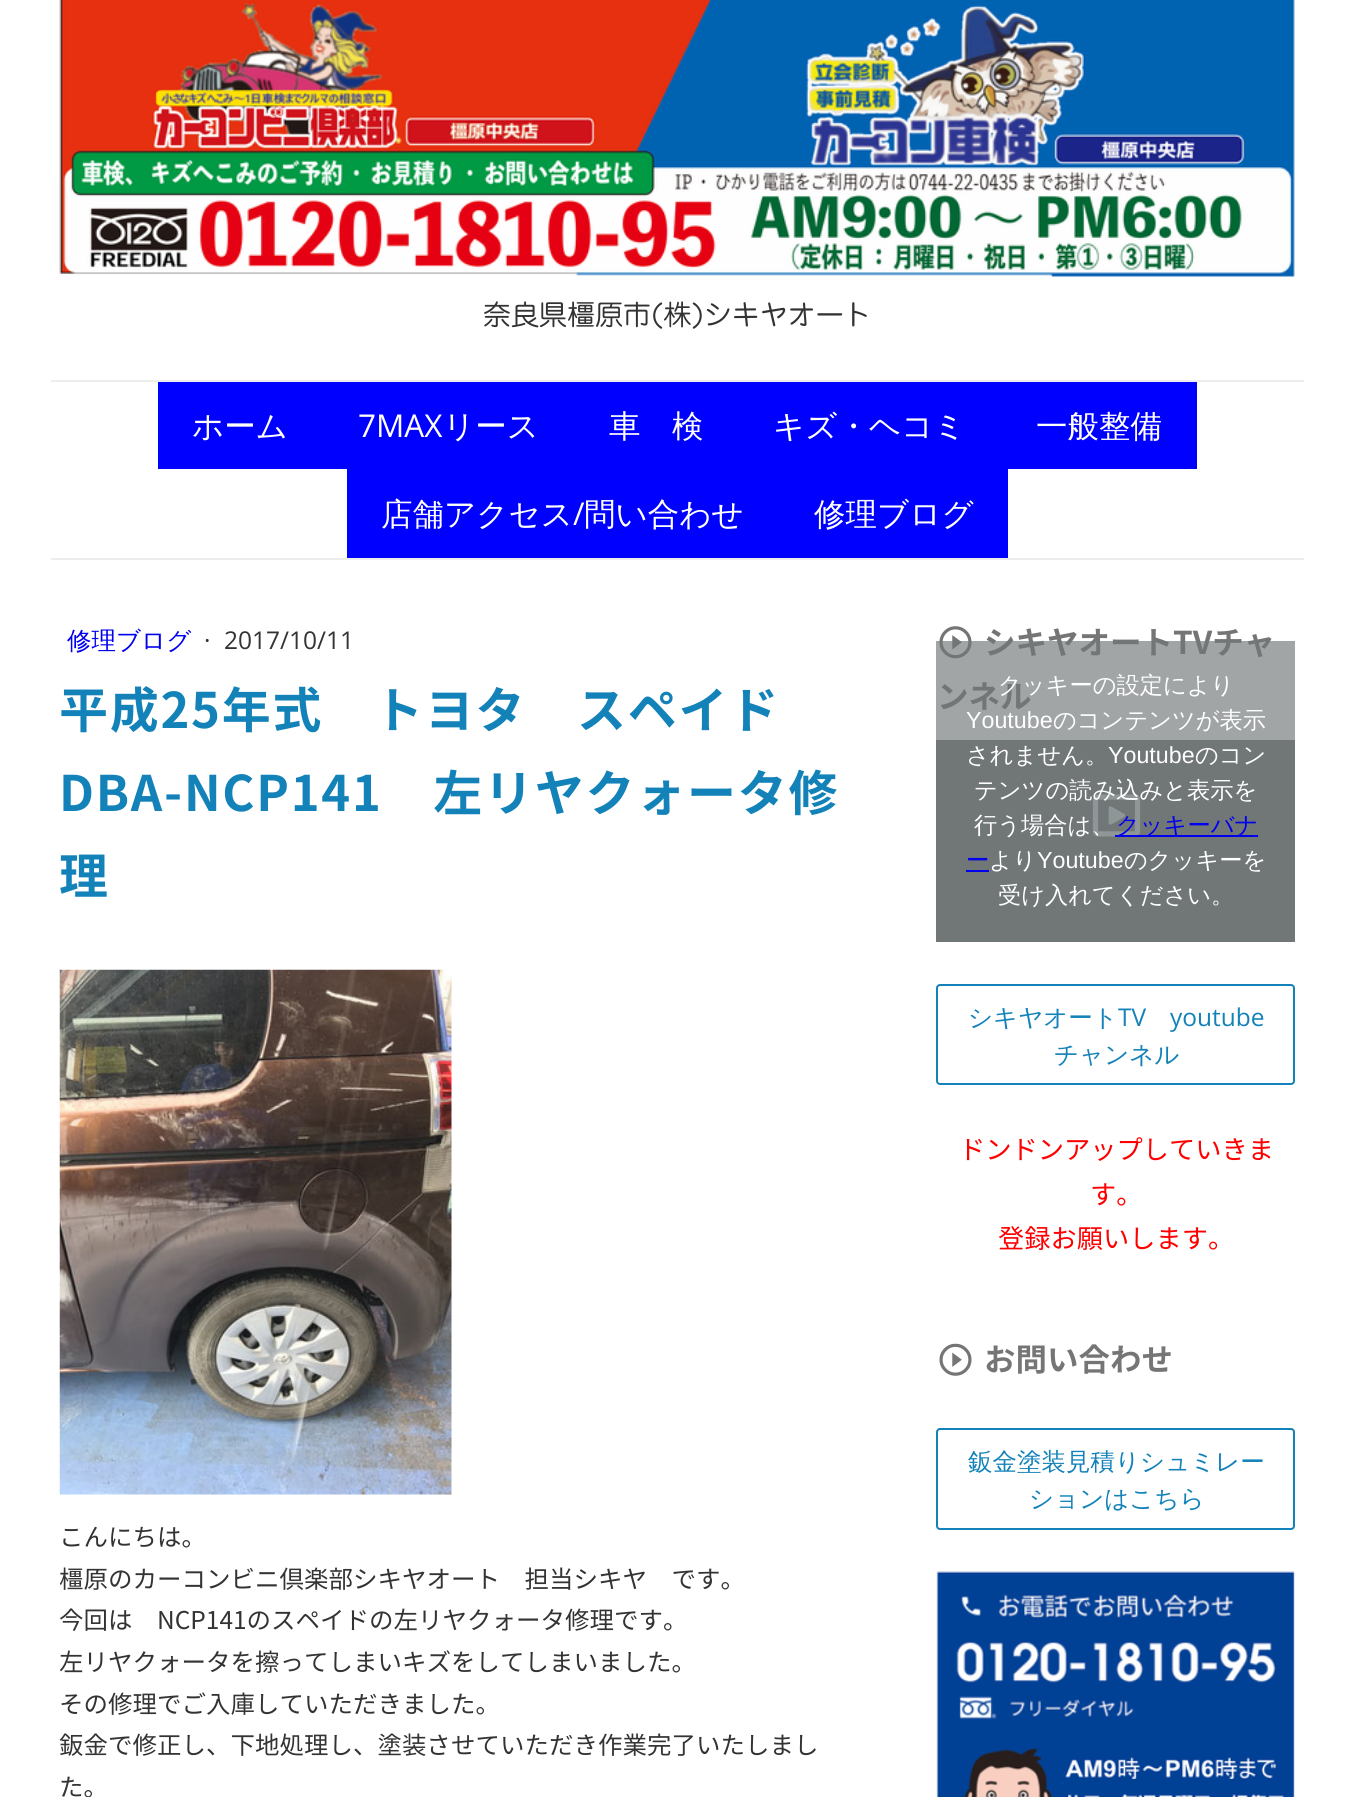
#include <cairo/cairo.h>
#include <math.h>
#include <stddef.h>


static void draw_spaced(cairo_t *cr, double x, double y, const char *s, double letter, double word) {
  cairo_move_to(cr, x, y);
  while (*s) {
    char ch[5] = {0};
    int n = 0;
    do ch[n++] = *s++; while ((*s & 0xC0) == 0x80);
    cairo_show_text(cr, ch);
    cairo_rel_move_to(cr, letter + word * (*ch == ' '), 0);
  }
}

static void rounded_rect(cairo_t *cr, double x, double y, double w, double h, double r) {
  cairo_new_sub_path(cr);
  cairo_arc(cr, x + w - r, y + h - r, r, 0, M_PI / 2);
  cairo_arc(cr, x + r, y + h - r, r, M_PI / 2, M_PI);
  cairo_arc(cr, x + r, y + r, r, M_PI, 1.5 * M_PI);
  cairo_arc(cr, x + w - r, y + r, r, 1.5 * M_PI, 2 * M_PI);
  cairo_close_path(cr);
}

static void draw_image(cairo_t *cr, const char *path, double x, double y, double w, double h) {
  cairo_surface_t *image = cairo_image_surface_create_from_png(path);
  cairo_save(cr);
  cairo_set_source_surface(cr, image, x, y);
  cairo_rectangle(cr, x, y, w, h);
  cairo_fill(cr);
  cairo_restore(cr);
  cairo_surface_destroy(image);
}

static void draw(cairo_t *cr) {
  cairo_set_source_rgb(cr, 1, 1, 1);
  cairo_paint(cr);
  draw_image(cr, "images/1.png", 59, 0, 1236, 277);
  cairo_set_source_rgb(cr, 237 / 255.0, 237 / 255.0, 237 / 255.0);
  cairo_rectangle(cr, 51, 380, 1253, 2);
  cairo_fill(cr);
  cairo_rectangle(cr, 51, 558, 1253, 2);
  cairo_fill(cr);
  cairo_set_source_rgb(cr, 0, 0, 1);
  cairo_rectangle(cr, 158, 382, 1039, 87);
  cairo_fill(cr);
  cairo_rectangle(cr, 347, 469, 661, 89);
  cairo_fill(cr);
  draw_image(cr, "images/2.png", 59, 969, 393, 526);
  draw_image(cr, "images/3.png", 939, 626, 33, 33);
  cairo_set_source_rgb(cr, 113 / 255.0, 118 / 255.0, 119 / 255.0);
  cairo_rectangle(cr, 936, 740, 359, 202);
  cairo_fill(cr);
  cairo_set_source_rgb(cr, 0, 0, 238 / 255.0);
  cairo_rectangle(cr, 966, 870, 23, 2);
  cairo_fill(cr);
  draw_image(cr, "images/4.png", 1092, 794, 49, 43);
  rounded_rect(cr, 937, 985, 357, 99, 3);
  cairo_set_source_rgb(cr, 19 / 255.0, 130 / 255.0, 185 / 255.0);
  cairo_stroke(cr);
  draw_image(cr, "images/5.png", 939, 1343, 33, 33);
  rounded_rect(cr, 937, 1429, 357, 100, 3);
  cairo_stroke(cr);
  draw_image(cr, "images/6.png", 936, 1571, 359, 226);
  cairo_select_font_face(cr, "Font", CAIRO_FONT_SLANT_NORMAL, CAIRO_FONT_WEIGHT_NORMAL);
  cairo_set_font_size(cr, 28);
  cairo_set_source_rgb(cr, 51 / 255.0, 51 / 255.0, 51 / 255.0);
  cairo_move_to(cr, 483, 325);
  cairo_show_text(cr, "奈良県橿原市(株)シキヤオート");
  cairo_select_font_face(cr, "WenQuanYi Zen Hei Medium", CAIRO_FONT_SLANT_NORMAL, CAIRO_FONT_WEIGHT_NORMAL);
  cairo_set_font_size(cr, 31.5);
  cairo_set_source_rgb(cr, 1, 1, 1);
  cairo_move_to(cr, 192, 437);
  cairo_show_text(cr, "ホーム");
  cairo_select_font_face(cr, "Open Sans", CAIRO_FONT_SLANT_NORMAL, CAIRO_FONT_WEIGHT_NORMAL);
  cairo_move_to(cr, 358, 437);
  cairo_show_text(cr, "7MAX");
  cairo_select_font_face(cr, "WenQuanYi Zen Hei Medium", CAIRO_FONT_SLANT_NORMAL, CAIRO_FONT_WEIGHT_NORMAL);
  cairo_move_to(cr, 443, 437);
  cairo_show_text(cr, "リース");
  cairo_move_to(cr, 609, 437);
  cairo_show_text(cr, "車　検");
  cairo_move_to(cr, 773, 437);
  cairo_show_text(cr, "キズ・ヘコミ");
  cairo_move_to(cr, 1036, 437);
  cairo_show_text(cr, "一般整備");
  cairo_move_to(cr, 381, 525);
  cairo_show_text(cr, "店舗アクセス");
  cairo_select_font_face(cr, "Open Sans", CAIRO_FONT_SLANT_NORMAL, CAIRO_FONT_WEIGHT_NORMAL);
  cairo_move_to(cr, 573, 525);
  cairo_show_text(cr, "/");
  cairo_select_font_face(cr, "WenQuanYi Zen Hei Medium", CAIRO_FONT_SLANT_NORMAL, CAIRO_FONT_WEIGHT_NORMAL);
  cairo_move_to(cr, 584, 525);
  cairo_show_text(cr, "問い合わせ");
  cairo_move_to(cr, 814, 525);
  cairo_show_text(cr, "修理ブログ");
  cairo_set_font_size(cr, 24.5);
  cairo_set_source_rgb(cr, 0, 0, 238 / 255.0);
  cairo_move_to(cr, 67, 649);
  cairo_show_text(cr, "修理ブログ");
  cairo_select_font_face(cr, "Open Sans", CAIRO_FONT_SLANT_NORMAL, CAIRO_FONT_WEIGHT_NORMAL);
  cairo_set_source_rgb(cr, 51 / 255.0, 51 / 255.0, 51 / 255.0);
  cairo_move_to(cr, 204, 649);
  cairo_show_text(cr, "·");
  cairo_move_to(cr, 224, 649);
  cairo_show_text(cr, "2017/10/11");
  cairo_select_font_face(cr, "Noto Sans JP", CAIRO_FONT_SLANT_NORMAL, CAIRO_FONT_WEIGHT_BOLD);
  cairo_set_font_size(cr, 49);
  cairo_set_source_rgb(cr, 19 / 255.0, 130 / 255.0, 185 / 255.0);
  draw_spaced(cr, 59, 728, "平成25年式　トヨタ　スペイド", 1.75, 0);
  draw_spaced(cr, 59, 811, "DBA-NCP141　左リヤクォータ修", 1.75, 0);
  draw_spaced(cr, 59, 894, "理", 1.75, 0);
  cairo_select_font_face(cr, "Noto Sans JP", CAIRO_FONT_SLANT_NORMAL, CAIRO_FONT_WEIGHT_NORMAL);
  cairo_set_font_size(cr, 24.5);
  cairo_set_source_rgb(cr, 51 / 255.0, 51 / 255.0, 51 / 255.0);
  cairo_move_to(cr, 59, 1546);
  cairo_show_text(cr, "こんにちは。");
  cairo_move_to(cr, 59, 1588);
  cairo_show_text(cr, "橿原のカーコンビニ倶楽部シキヤオート　担当シキヤ　です。");
  cairo_move_to(cr, 59, 1629);
  cairo_show_text(cr, "今回は　NCP141のスペイドの左リヤクォータ修理です。");
  cairo_move_to(cr, 59, 1671);
  cairo_show_text(cr, "左リヤクォータを擦ってしまいキズをしてしまいました。");
  cairo_move_to(cr, 59, 1713);
  cairo_show_text(cr, "その修理でご入庫していただきました。");
  cairo_move_to(cr, 59, 1754);
  cairo_show_text(cr, "鈑金で修正し、下地処理し、塗装させていただき作業完了いたしまし");
  cairo_move_to(cr, 59, 1796);
  cairo_show_text(cr, "た。");
  cairo_select_font_face(cr, "Noto Sans JP", CAIRO_FONT_SLANT_NORMAL, CAIRO_FONT_WEIGHT_BOLD);
  cairo_set_font_size(cr, 31.5);
  cairo_set_source_rgb(cr, 117 / 255.0, 117 / 255.0, 117 / 255.0);
  cairo_move_to(cr, 984, 654);
  cairo_show_text(cr, "シキヤオートTVチャ");
  cairo_move_to(cr, 937, 708);
  cairo_show_text(cr, "ンネル");
  cairo_set_source_rgba(cr, 113 / 255.0, 118 / 255.0, 119 / 255.0, 0.66);
  cairo_rectangle(cr, 936, 641, 359, 196);
  cairo_fill(cr);
  cairo_select_font_face(cr, "WenQuanYi Zen Hei Medium", CAIRO_FONT_SLANT_NORMAL, CAIRO_FONT_WEIGHT_NORMAL);
  cairo_set_font_size(cr, 23.25);
  cairo_set_source_rgb(cr, 1, 1, 1);
  cairo_move_to(cr, 998, 693);
  cairo_show_text(cr, "クッキーの設定により");
  cairo_select_font_face(cr, "Liberation Sans", CAIRO_FONT_SLANT_NORMAL, CAIRO_FONT_WEIGHT_NORMAL);
  cairo_move_to(cr, 966, 728);
  cairo_show_text(cr, "Youtube");
  cairo_select_font_face(cr, "WenQuanYi Zen Hei Medium", CAIRO_FONT_SLANT_NORMAL, CAIRO_FONT_WEIGHT_NORMAL);
  cairo_move_to(cr, 1053, 728);
  cairo_show_text(cr, "のコンテンツが表示");
  cairo_move_to(cr, 966, 763);
  cairo_show_text(cr, "されません。");
  cairo_select_font_face(cr, "Liberation Sans", CAIRO_FONT_SLANT_NORMAL, CAIRO_FONT_WEIGHT_NORMAL);
  cairo_move_to(cr, 1108, 763);
  cairo_show_text(cr, "Youtube");
  cairo_select_font_face(cr, "WenQuanYi Zen Hei Medium", CAIRO_FONT_SLANT_NORMAL, CAIRO_FONT_WEIGHT_NORMAL);
  cairo_move_to(cr, 1195, 763);
  cairo_show_text(cr, "のコン");
  cairo_move_to(cr, 974, 798);
  cairo_show_text(cr, "テンツの読み込みと表示を");
  cairo_move_to(cr, 974, 833);
  cairo_show_text(cr, "行う場合は、");
  cairo_set_source_rgb(cr, 0, 0, 238 / 255.0);
  cairo_rectangle(cr, 1115, 835, 143, 2);
  cairo_fill(cr);
  cairo_move_to(cr, 1116, 833);
  cairo_show_text(cr, "クッキーバナ");
  cairo_move_to(cr, 966, 868);
  cairo_show_text(cr, "ー");
  cairo_set_source_rgb(cr, 1, 1, 1);
  cairo_move_to(cr, 989, 868);
  cairo_show_text(cr, "より");
  cairo_select_font_face(cr, "Liberation Sans", CAIRO_FONT_SLANT_NORMAL, CAIRO_FONT_WEIGHT_NORMAL);
  cairo_move_to(cr, 1037, 868);
  cairo_show_text(cr, "Youtube");
  cairo_select_font_face(cr, "WenQuanYi Zen Hei Medium", CAIRO_FONT_SLANT_NORMAL, CAIRO_FONT_WEIGHT_NORMAL);
  cairo_move_to(cr, 1124, 868);
  cairo_show_text(cr, "のクッキーを");
  cairo_move_to(cr, 998, 903);
  cairo_show_text(cr, "受け入れてください。");
  cairo_set_font_size(cr, 24.5);
  cairo_set_source_rgb(cr, 19 / 255.0, 130 / 255.0, 185 / 255.0);
  cairo_move_to(cr, 968, 1026);
  cairo_show_text(cr, "シキヤオート");
  cairo_select_font_face(cr, "Open Sans", CAIRO_FONT_SLANT_NORMAL, CAIRO_FONT_WEIGHT_NORMAL);
  cairo_move_to(cr, 1118, 1026);
  cairo_show_text(cr, "TV");
  cairo_move_to(cr, 1170, 1026);
  cairo_show_text(cr, "youtube");
  cairo_select_font_face(cr, "WenQuanYi Zen Hei Medium", CAIRO_FONT_SLANT_NORMAL, CAIRO_FONT_WEIGHT_NORMAL);
  cairo_move_to(cr, 1054, 1063);
  cairo_show_text(cr, "チャンネル");
  cairo_select_font_face(cr, "Noto Sans JP", CAIRO_FONT_SLANT_NORMAL, CAIRO_FONT_WEIGHT_NORMAL);
  cairo_set_font_size(cr, 26.25);
  cairo_set_source_rgb(cr, 1, 0, 0);
  cairo_move_to(cr, 959, 1159);
  cairo_show_text(cr, "ドンドンアップしていきま");
  cairo_move_to(cr, 1090, 1204);
  cairo_show_text(cr, "す。");
  cairo_move_to(cr, 998, 1248);
  cairo_show_text(cr, "登録お願いします。");
  cairo_select_font_face(cr, "Noto Sans JP", CAIRO_FONT_SLANT_NORMAL, CAIRO_FONT_WEIGHT_BOLD);
  cairo_set_font_size(cr, 31.5);
  cairo_set_source_rgb(cr, 117 / 255.0, 117 / 255.0, 117 / 255.0);
  cairo_move_to(cr, 984, 1371);
  cairo_show_text(cr, "お問い合わせ");
  cairo_select_font_face(cr, "WenQuanYi Zen Hei Medium", CAIRO_FONT_SLANT_NORMAL, CAIRO_FONT_WEIGHT_NORMAL);
  cairo_set_font_size(cr, 24.5);
  cairo_set_source_rgb(cr, 19 / 255.0, 130 / 255.0, 185 / 255.0);
  cairo_move_to(cr, 968, 1470);
  cairo_show_text(cr, "鈑金塗装見積りシュミレー");
  cairo_move_to(cr, 1029, 1507);
  cairo_show_text(cr, "ションはこちら");
}

int main(void) {
  cairo_surface_t *surface = cairo_image_surface_create(CAIRO_FORMAT_RGB24, 1353, 1797);
  cairo_t *cr = cairo_create(surface);
  cairo_font_options_t *options = cairo_font_options_create();
  cairo_font_options_set_hint_metrics(options, CAIRO_HINT_METRICS_OFF);
  cairo_font_options_set_hint_style(options, CAIRO_HINT_STYLE_NONE);
  cairo_set_font_options(cr, options);
  cairo_set_miter_limit(cr, 4);
  draw(cr);
  cairo_surface_write_to_png(surface, "out.png");
  cairo_font_options_destroy(options);
  cairo_destroy(cr);
  cairo_surface_destroy(surface);
  return 0;
}
